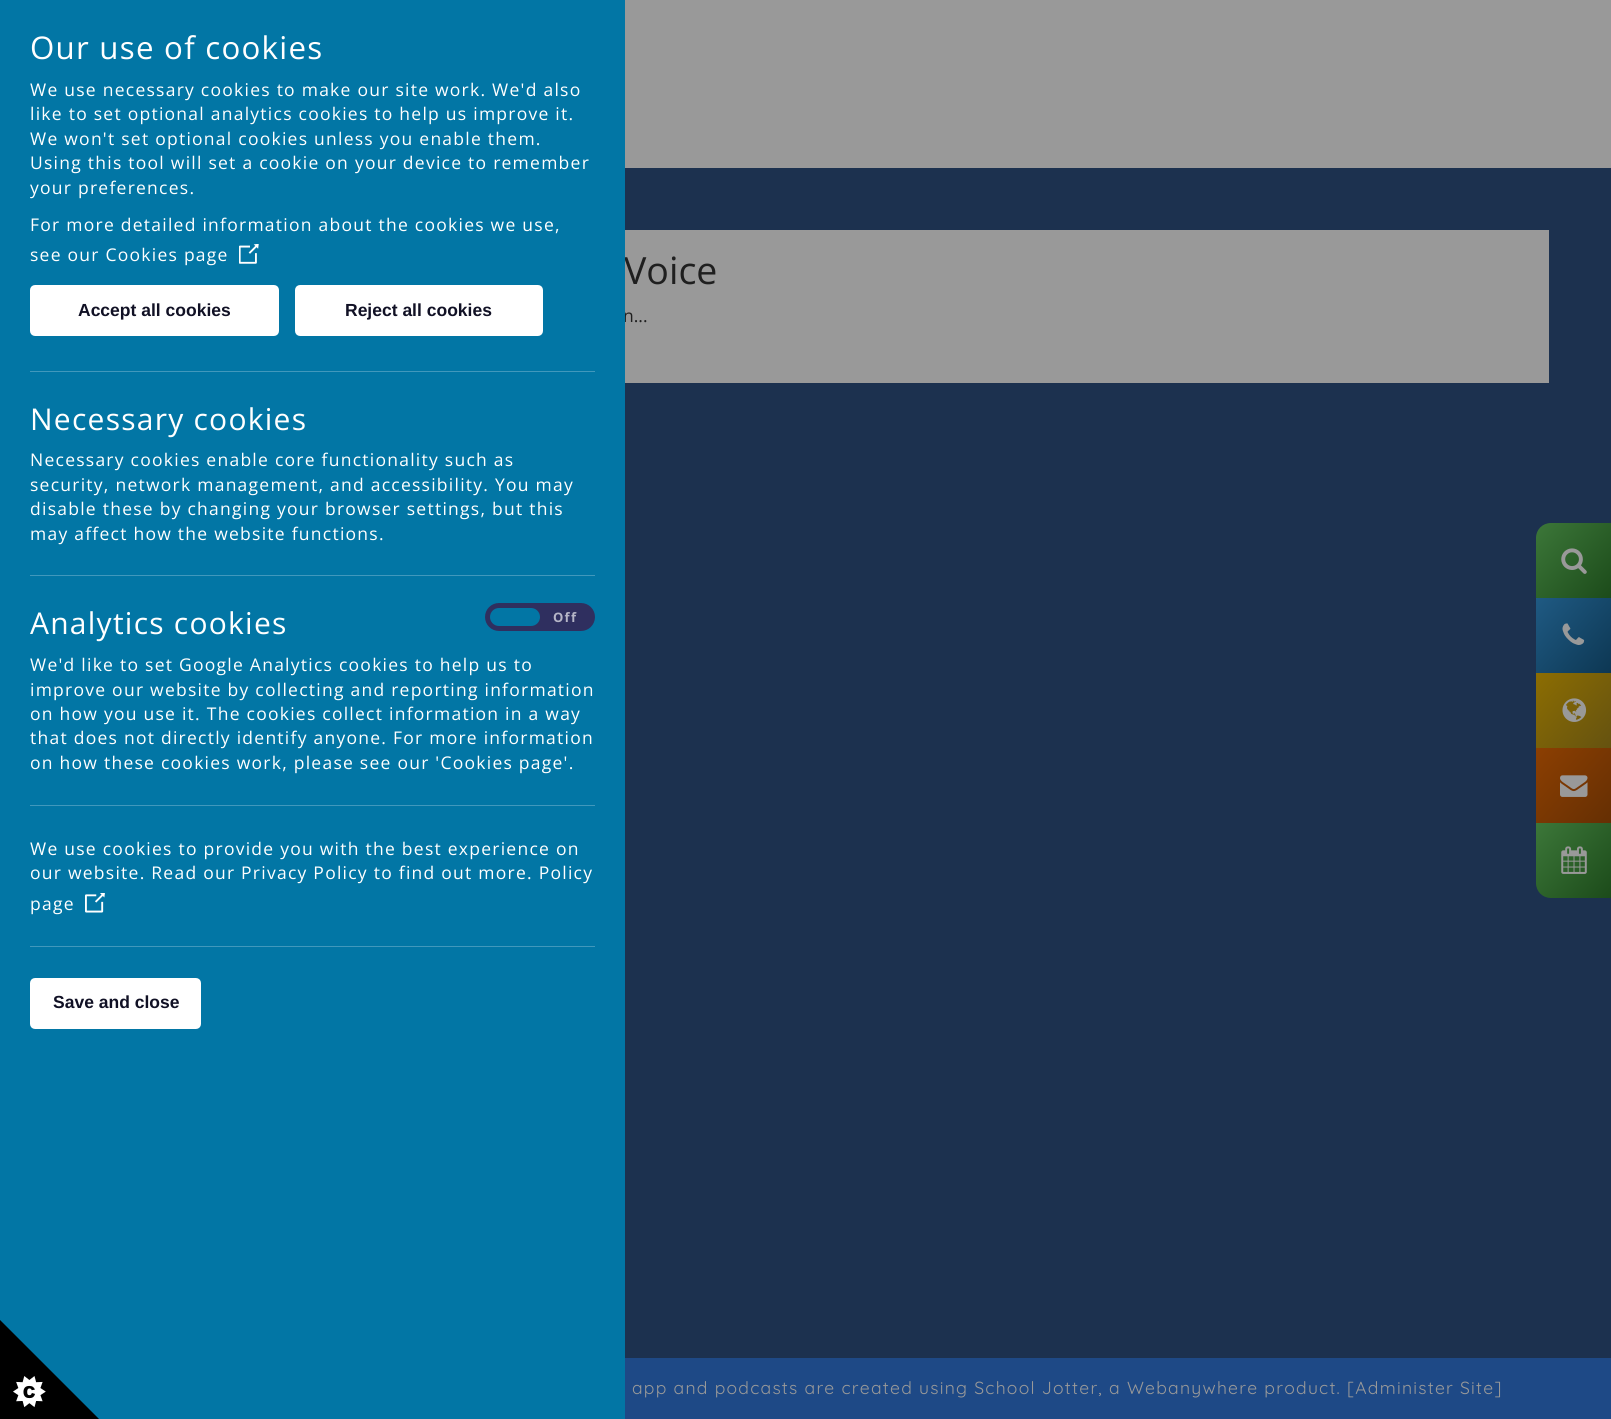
#include <cairo/cairo.h>
#include <math.h>
#include <stddef.h>


static void draw_spaced(cairo_t *cr, double x, double y, const char *s, double letter, double word) {
  cairo_move_to(cr, x, y);
  while (*s) {
    char ch[5] = {0};
    int n = 0;
    do ch[n++] = *s++; while ((*s & 0xC0) == 0x80);
    cairo_show_text(cr, ch);
    cairo_rel_move_to(cr, letter + word * (*ch == ' '), 0);
  }
}

static void rounded_rect(cairo_t *cr, double x, double y, double w, double h, double r) {
  cairo_new_sub_path(cr);
  cairo_arc(cr, x + w - r, y + h - r, r, 0, M_PI / 2);
  cairo_arc(cr, x + r, y + h - r, r, M_PI / 2, M_PI);
  cairo_arc(cr, x + r, y + r, r, M_PI, 1.5 * M_PI);
  cairo_arc(cr, x + w - r, y + r, r, 1.5 * M_PI, 2 * M_PI);
  cairo_close_path(cr);
}

static void draw_image(cairo_t *cr, const char *path, double x, double y, double w, double h) {
  cairo_surface_t *image = cairo_image_surface_create_from_png(path);
  cairo_save(cr);
  cairo_set_source_surface(cr, image, x, y);
  cairo_rectangle(cr, x, y, w, h);
  cairo_fill(cr);
  cairo_restore(cr);
  cairo_surface_destroy(image);
}

static void draw(cairo_t *cr) {
  cairo_pattern_t *gradient;
  cairo_set_source_rgb(cr, 153 / 255.0, 153 / 255.0, 153 / 255.0);
  cairo_paint(cr);
  cairo_set_source_rgb(cr, 30 / 255.0, 73 / 255.0, 134 / 255.0);
  cairo_rectangle(cr, 625, 1358, 986, 61);
  cairo_fill(cr);
  cairo_set_source_rgb(cr, 28 / 255.0, 49 / 255.0, 79 / 255.0);
  cairo_rectangle(cr, 625, 168, 986, 1190);
  cairo_fill(cr);
  cairo_set_source_rgb(cr, 153 / 255.0, 153 / 255.0, 153 / 255.0);
  cairo_rectangle(cr, 625, 230, 924, 153);
  cairo_fill(cr);
  gradient = cairo_pattern_create_linear(1534, 525, 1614, 595);
  cairo_pattern_add_color_stop_rgba(gradient, 0, 60 / 255.0, 119 / 255.0, 57 / 255.0, 1);
  cairo_pattern_add_color_stop_rgba(gradient, 1, 28 / 255.0, 75 / 255.0, 26 / 255.0, 1);
  cairo_set_source(cr, gradient);
  cairo_pattern_destroy(gradient);
  cairo_new_path(cr);
  cairo_move_to(cr, 1551, 523);
  cairo_line_to(cr, 1611, 523);
  cairo_line_to(cr, 1611, 598);
  cairo_line_to(cr, 1536, 598);
  cairo_line_to(cr, 1536, 538);
  cairo_curve_to(cr, 1536, 529.5, 1542.5, 523, 1551, 523);
  cairo_close_path(cr);
  cairo_fill(cr);
  draw_image(cr, "images/4.png", 1561, 548, 26, 26);
  gradient = cairo_pattern_create_linear(1534, 600, 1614, 670);
  cairo_pattern_add_color_stop_rgba(gradient, 0, 31 / 255.0, 90 / 255.0, 131 / 255.0, 1);
  cairo_pattern_add_color_stop_rgba(gradient, 1, 13 / 255.0, 55 / 255.0, 83 / 255.0, 1);
  cairo_set_source(cr, gradient);
  cairo_pattern_destroy(gradient);
  cairo_rectangle(cr, 1536, 598, 75, 75);
  cairo_fill(cr);
  draw_image(cr, "images/5.png", 1562, 623, 23, 22);
  gradient = cairo_pattern_create_linear(1534, 675, 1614, 745);
  cairo_pattern_add_color_stop_rgba(gradient, 0, 140 / 255.0, 109 / 255.0, 2 / 255.0, 1);
  cairo_pattern_add_color_stop_rgba(gradient, 1, 101 / 255.0, 82 / 255.0, 16 / 255.0, 1);
  cairo_set_source(cr, gradient);
  cairo_pattern_destroy(gradient);
  cairo_rectangle(cr, 1536, 673, 75, 75);
  cairo_fill(cr);
  draw_image(cr, "images/6.png", 1562, 698, 25, 24);
  gradient = cairo_pattern_create_linear(1534, 750, 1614, 820);
  cairo_pattern_add_color_stop_rgba(gradient, 0, 140 / 255.0, 63 / 255.0, 2 / 255.0, 1);
  cairo_pattern_add_color_stop_rgba(gradient, 1, 101 / 255.0, 47 / 255.0, 3 / 255.0, 1);
  cairo_set_source(cr, gradient);
  cairo_pattern_destroy(gradient);
  cairo_rectangle(cr, 1536, 748, 75, 75);
  cairo_fill(cr);
  draw_image(cr, "images/7.png", 1560, 775, 28, 22);
  gradient = cairo_pattern_create_linear(1534, 825, 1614, 895);
  cairo_pattern_add_color_stop_rgba(gradient, 0, 60 / 255.0, 119 / 255.0, 57 / 255.0, 1);
  cairo_pattern_add_color_stop_rgba(gradient, 1, 28 / 255.0, 75 / 255.0, 26 / 255.0, 1);
  cairo_set_source(cr, gradient);
  cairo_pattern_destroy(gradient);
  cairo_new_path(cr);
  cairo_move_to(cr, 1536, 823);
  cairo_line_to(cr, 1611, 823);
  cairo_line_to(cr, 1611, 898);
  cairo_line_to(cr, 1551, 898);
  cairo_curve_to(cr, 1542.5, 898, 1536, 891.5, 1536, 883);
  cairo_close_path(cr);
  cairo_fill(cr);
  draw_image(cr, "images/8.png", 1561, 846, 26, 28);
  cairo_select_font_face(cr, "Quicksand", CAIRO_FONT_SLANT_NORMAL, CAIRO_FONT_WEIGHT_NORMAL);
  cairo_set_font_size(cr, 17.5);
  cairo_set_source_rgb(cr, 153 / 255.0, 153 / 255.0, 153 / 255.0);
  draw_spaced(cr, 632, 1394, "app and podcasts are created using School Jotter, a Webanywhere product. [Administer Site]", 1.25, 0);
  cairo_select_font_face(cr, "Open Sans", CAIRO_FONT_SLANT_NORMAL, CAIRO_FONT_WEIGHT_NORMAL);
  cairo_set_font_size(cr, 37.5);
  cairo_set_source_rgb(cr, 31 / 255.0, 31 / 255.0, 31 / 255.0);
  cairo_move_to(cr, 624, 284);
  cairo_show_text(cr, "Voice");
  cairo_set_font_size(cr, 17.5);
  cairo_move_to(cr, 623, 322);
  cairo_show_text(cr, "n...");
  cairo_set_source_rgb(cr, 2 / 255.0, 118 / 255.0, 165 / 255.0);
  cairo_rectangle(cr, 0, 0, 625, 1419);
  cairo_fill(cr);
  draw_image(cr, "images/3.png", 0, 1320, 99, 99);
  cairo_set_source_rgb(cr, 47 / 255.0, 47 / 255.0, 95 / 255.0);
  rounded_rect(cr, 487.5, 605.5, 105, 23, 11.5);
  cairo_fill_preserve(cr);
  cairo_set_line_width(cr, 5);
  cairo_stroke(cr);
  cairo_set_source_rgb(cr, 2 / 255.0, 118 / 255.0, 165 / 255.0);
  rounded_rect(cr, 490, 608, 50, 18, 9);
  cairo_fill(cr);
  cairo_select_font_face(cr, "Open Sans", CAIRO_FONT_SLANT_NORMAL, CAIRO_FONT_WEIGHT_BOLD);
  cairo_set_font_size(cr, 13);
  cairo_set_source_rgb(cr, 182 / 255.0, 182 / 255.0, 199 / 255.0);
  draw_spaced(cr, 553, 622, "Off", 1.25, 0);
  cairo_set_source_rgb(cr, 65 / 255.0, 152 / 255.0, 188 / 255.0);
  cairo_rectangle(cr, 30, 946, 565, 1);
  cairo_fill(cr);
  draw_image(cr, "images/2.png", 85, 893, 20, 20);
  cairo_rectangle(cr, 30, 805, 565, 1);
  cairo_fill(cr);
  cairo_select_font_face(cr, "Open Sans", CAIRO_FONT_SLANT_NORMAL, CAIRO_FONT_WEIGHT_NORMAL);
  cairo_set_font_size(cr, 17.5);
  cairo_set_source_rgb(cr, 1, 1, 1);
  draw_spaced(cr, 30, 910, "page", 1.25, 0);
  draw_spaced(cr, 30, 879, "our website. Read our Privacy Policy to find out more. Policy", 1.25, 0);
  draw_spaced(cr, 30, 855, "We use cookies to provide you with the best experience on", 1.25, 0);
  draw_spaced(cr, 30, 769, "on how these cookies work, please see our 'Cookies page'.", 1.25, 0);
  draw_spaced(cr, 30, 744, "that does not directly identify anyone. For more information", 1.25, 0);
  draw_spaced(cr, 30, 720, "on how you use it. The cookies collect information in a way", 1.25, 0);
  draw_spaced(cr, 30, 696, "improve our website by collecting and reporting information", 1.25, 0);
  draw_spaced(cr, 30, 671, "We'd like to set Google Analytics cookies to help us to", 1.25, 0);
  cairo_set_font_size(cr, 30);
  draw_spaced(cr, 30, 634, "Analytics cookies", 1.25, 0);
  cairo_set_source_rgb(cr, 65 / 255.0, 152 / 255.0, 188 / 255.0);
  cairo_rectangle(cr, 30, 575, 565, 1);
  cairo_fill(cr);
  cairo_rectangle(cr, 30, 371, 565, 1);
  cairo_fill(cr);
  draw_image(cr, "images/1.png", 239, 244, 20, 20);
  cairo_set_source_rgb(cr, 1, 1, 1);
  rounded_rect(cr, 31.5, 979.5, 168, 48, 3.5);
  cairo_fill_preserve(cr);
  cairo_set_line_width(cr, 3);
  cairo_stroke(cr);
  cairo_select_font_face(cr, "Liberation Sans", CAIRO_FONT_SLANT_NORMAL, CAIRO_FONT_WEIGHT_BOLD);
  cairo_set_font_size(cr, 17.5);
  cairo_set_source_rgb(cr, 17 / 255.0, 17 / 255.0, 37 / 255.0);
  cairo_move_to(cr, 53, 1008);
  cairo_show_text(cr, "Save and close");
  cairo_select_font_face(cr, "Open Sans", CAIRO_FONT_SLANT_NORMAL, CAIRO_FONT_WEIGHT_NORMAL);
  cairo_set_source_rgb(cr, 1, 1, 1);
  draw_spaced(cr, 30, 540, "may affect how the website functions.", 1.25, 0);
  draw_spaced(cr, 30, 515, "disable these by changing your browser settings, but this", 1.25, 0);
  draw_spaced(cr, 30, 491, "security, network management, and accessibility. You may", 1.25, 0);
  draw_spaced(cr, 30, 466, "Necessary cookies enable core functionality such as", 1.25, 0);
  cairo_set_font_size(cr, 30);
  draw_spaced(cr, 30, 430, "Necessary cookies", 1.25, 0);
  rounded_rect(cr, 296.5, 286.5, 245, 48, 3.5);
  cairo_fill_preserve(cr);
  cairo_stroke(cr);
  cairo_select_font_face(cr, "Liberation Sans", CAIRO_FONT_SLANT_NORMAL, CAIRO_FONT_WEIGHT_BOLD);
  cairo_set_font_size(cr, 17.5);
  cairo_set_source_rgb(cr, 17 / 255.0, 17 / 255.0, 37 / 255.0);
  cairo_move_to(cr, 345, 316);
  cairo_show_text(cr, "Reject all cookies");
  cairo_set_source_rgb(cr, 1, 1, 1);
  rounded_rect(cr, 31.5, 286.5, 246, 48, 3.5);
  cairo_fill_preserve(cr);
  cairo_stroke(cr);
  cairo_set_source_rgb(cr, 17 / 255.0, 17 / 255.0, 37 / 255.0);
  cairo_move_to(cr, 78, 316);
  cairo_show_text(cr, "Accept all cookies");
  cairo_select_font_face(cr, "Open Sans", CAIRO_FONT_SLANT_NORMAL, CAIRO_FONT_WEIGHT_NORMAL);
  cairo_set_source_rgb(cr, 1, 1, 1);
  draw_spaced(cr, 30, 261, "see our Cookies page", 1.25, 0);
  draw_spaced(cr, 30, 231, "For more detailed information about the cookies we use,", 1.25, 0);
  draw_spaced(cr, 30, 194, "your preferences.", 1.25, 0);
  draw_spaced(cr, 30, 169, "Using this tool will set a cookie on your device to remember", 1.25, 0);
  draw_spaced(cr, 30, 145, "We won't set optional cookies unless you enable them.", 1.25, 0);
  draw_spaced(cr, 30, 120, "like to set optional analytics cookies to help us improve it.", 1.25, 0);
  draw_spaced(cr, 30, 96, "We use necessary cookies to make our site work. We'd also", 1.25, 0);
  cairo_set_font_size(cr, 31.25);
  draw_spaced(cr, 30, 59, "Our use of cookies", 1.25, 0);
}

int main(void) {
  cairo_surface_t *surface = cairo_image_surface_create(CAIRO_FORMAT_RGB24, 1611, 1419);
  cairo_t *cr = cairo_create(surface);
  cairo_font_options_t *options = cairo_font_options_create();
  cairo_font_options_set_hint_metrics(options, CAIRO_HINT_METRICS_OFF);
  cairo_font_options_set_hint_style(options, CAIRO_HINT_STYLE_NONE);
  cairo_set_font_options(cr, options);
  cairo_set_miter_limit(cr, 4);
  draw(cr);
  cairo_surface_write_to_png(surface, "out.png");
  cairo_font_options_destroy(options);
  cairo_destroy(cr);
  cairo_surface_destroy(surface);
  return 0;
}
